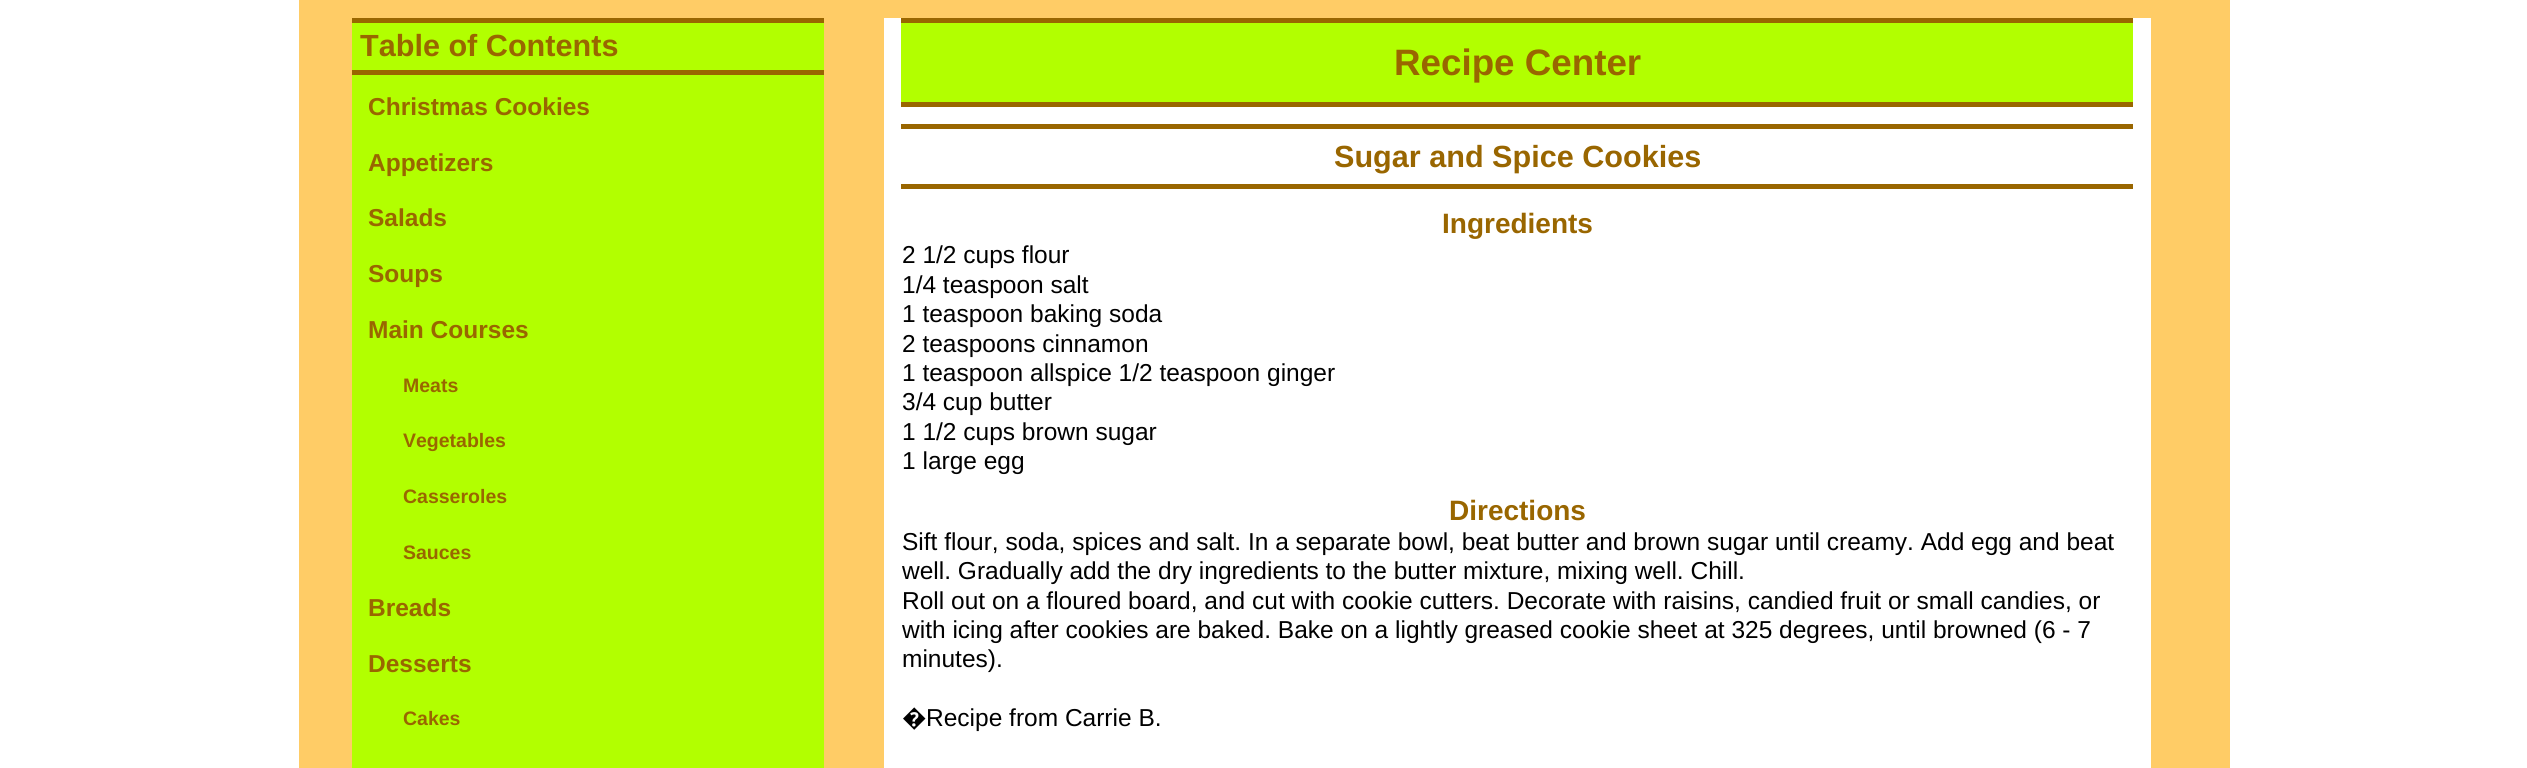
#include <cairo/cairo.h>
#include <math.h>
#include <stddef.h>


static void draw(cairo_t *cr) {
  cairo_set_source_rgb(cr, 1, 1, 1);
  cairo_paint(cr);
  cairo_set_source_rgb(cr, 1, 204 / 255.0, 102 / 255.0);
  cairo_rectangle(cr, 299, 0, 1931, 768);
  cairo_fill(cr);
  cairo_set_source_rgb(cr, 178 / 255.0, 1, 0);
  cairo_rectangle(cr, 352, 23, 472, 745);
  cairo_fill(cr);
  cairo_set_source_rgb(cr, 153 / 255.0, 102 / 255.0, 0);
  cairo_rectangle(cr, 352, 18, 472, 5);
  cairo_fill(cr);
  cairo_rectangle(cr, 352, 70, 472, 5);
  cairo_fill(cr);
  cairo_set_source_rgb(cr, 1, 1, 1);
  cairo_rectangle(cr, 884, 18, 1267, 750);
  cairo_fill(cr);
  cairo_set_source_rgb(cr, 178 / 255.0, 1, 0);
  cairo_rectangle(cr, 901, 23, 1232, 79);
  cairo_fill(cr);
  cairo_set_source_rgb(cr, 153 / 255.0, 102 / 255.0, 0);
  cairo_rectangle(cr, 901, 18, 1232, 5);
  cairo_fill(cr);
  cairo_rectangle(cr, 901, 102, 1232, 5);
  cairo_fill(cr);
  cairo_rectangle(cr, 901, 124, 1232, 5);
  cairo_fill(cr);
  cairo_rectangle(cr, 901, 184, 1232, 5);
  cairo_fill(cr);
  cairo_select_font_face(cr, "Liberation Sans", CAIRO_FONT_SLANT_NORMAL, CAIRO_FONT_WEIGHT_BOLD);
  cairo_set_font_size(cr, 30.6);
  cairo_move_to(cr, 360, 56);
  cairo_show_text(cr, "Table of Contents");
  cairo_set_font_size(cr, 24.5);
  cairo_move_to(cr, 368, 115);
  cairo_show_text(cr, "Christmas Cookies");
  cairo_move_to(cr, 368, 171);
  cairo_show_text(cr, "Appetizers");
  cairo_move_to(cr, 368, 226);
  cairo_show_text(cr, "Salads");
  cairo_move_to(cr, 368, 282);
  cairo_show_text(cr, "Soups");
  cairo_move_to(cr, 368, 338);
  cairo_show_text(cr, "Main Courses");
  cairo_set_font_size(cr, 19.5);
  cairo_move_to(cr, 403, 392);
  cairo_show_text(cr, "Meats");
  cairo_move_to(cr, 403, 447);
  cairo_show_text(cr, "Vegetables");
  cairo_move_to(cr, 403, 503);
  cairo_show_text(cr, "Casseroles");
  cairo_move_to(cr, 403, 559);
  cairo_show_text(cr, "Sauces");
  cairo_set_font_size(cr, 24.5);
  cairo_move_to(cr, 368, 616);
  cairo_show_text(cr, "Breads");
  cairo_move_to(cr, 368, 672);
  cairo_show_text(cr, "Desserts");
  cairo_set_font_size(cr, 19.5);
  cairo_move_to(cr, 403, 725);
  cairo_show_text(cr, "Cakes");
  cairo_set_font_size(cr, 36.75);
  cairo_move_to(cr, 1394, 75);
  cairo_show_text(cr, "Recipe Center");
  cairo_set_font_size(cr, 30.6);
  cairo_move_to(cr, 1334, 167);
  cairo_show_text(cr, "Sugar and Spice Cookies");
  cairo_set_font_size(cr, 28);
  cairo_move_to(cr, 1442, 233);
  cairo_show_text(cr, "Ingredients");
  cairo_select_font_face(cr, "Liberation Sans", CAIRO_FONT_SLANT_NORMAL, CAIRO_FONT_WEIGHT_NORMAL);
  cairo_set_font_size(cr, 24.5);
  cairo_set_source_rgb(cr, 0, 0, 0);
  cairo_move_to(cr, 902, 263);
  cairo_show_text(cr, "2 1/2 cups flour");
  cairo_move_to(cr, 902, 293);
  cairo_show_text(cr, "1/4 teaspoon salt");
  cairo_move_to(cr, 902, 322);
  cairo_show_text(cr, "1 teaspoon baking soda");
  cairo_move_to(cr, 902, 352);
  cairo_show_text(cr, "2 teaspoons cinnamon");
  cairo_move_to(cr, 902, 381);
  cairo_show_text(cr, "1 teaspoon allspice 1/2 teaspoon ginger");
  cairo_move_to(cr, 902, 410);
  cairo_show_text(cr, "3/4 cup butter");
  cairo_move_to(cr, 902, 440);
  cairo_show_text(cr, "1 1/2 cups brown sugar");
  cairo_move_to(cr, 902, 469);
  cairo_show_text(cr, "1 large egg");
  cairo_select_font_face(cr, "Liberation Sans", CAIRO_FONT_SLANT_NORMAL, CAIRO_FONT_WEIGHT_BOLD);
  cairo_set_font_size(cr, 28);
  cairo_set_source_rgb(cr, 153 / 255.0, 102 / 255.0, 0);
  cairo_move_to(cr, 1449, 520);
  cairo_show_text(cr, "Directions");
  cairo_select_font_face(cr, "Liberation Sans", CAIRO_FONT_SLANT_NORMAL, CAIRO_FONT_WEIGHT_NORMAL);
  cairo_set_font_size(cr, 24.5);
  cairo_set_source_rgb(cr, 0, 0, 0);
  cairo_move_to(cr, 902, 550);
  cairo_show_text(cr, "Sift flour, soda, spices and salt. In a separate bowl, beat butter and brown sugar until creamy. Add egg and beat");
  cairo_move_to(cr, 902, 579);
  cairo_show_text(cr, "well. Gradually add the dry ingredients to the butter mixture, mixing well. Chill.");
  cairo_move_to(cr, 902, 609);
  cairo_show_text(cr, "Roll out on a floured board, and cut with cookie cutters. Decorate with raisins, candied fruit or small candies, or");
  cairo_move_to(cr, 902, 638);
  cairo_show_text(cr, "with icing after cookies are baked. Bake on a lightly greased cookie sheet at 325 degrees, until browned (6 - 7");
  cairo_move_to(cr, 902, 667);
  cairo_show_text(cr, "minutes).");
  cairo_select_font_face(cr, "Noto Sans", CAIRO_FONT_SLANT_NORMAL, CAIRO_FONT_WEIGHT_NORMAL);
  cairo_move_to(cr, 902, 726);
  cairo_show_text(cr, "�");
  cairo_select_font_face(cr, "Liberation Sans", CAIRO_FONT_SLANT_NORMAL, CAIRO_FONT_WEIGHT_NORMAL);
  cairo_move_to(cr, 926, 726);
  cairo_show_text(cr, "Recipe from Carrie B.");
}

int main(void) {
  cairo_surface_t *surface = cairo_image_surface_create(CAIRO_FORMAT_RGB24, 2527, 768);
  cairo_t *cr = cairo_create(surface);
  cairo_font_options_t *options = cairo_font_options_create();
  cairo_font_options_set_hint_metrics(options, CAIRO_HINT_METRICS_OFF);
  cairo_font_options_set_hint_style(options, CAIRO_HINT_STYLE_NONE);
  cairo_set_font_options(cr, options);
  cairo_set_miter_limit(cr, 4);
  draw(cr);
  cairo_surface_write_to_png(surface, "out.png");
  cairo_font_options_destroy(options);
  cairo_destroy(cr);
  cairo_surface_destroy(surface);
  return 0;
}
